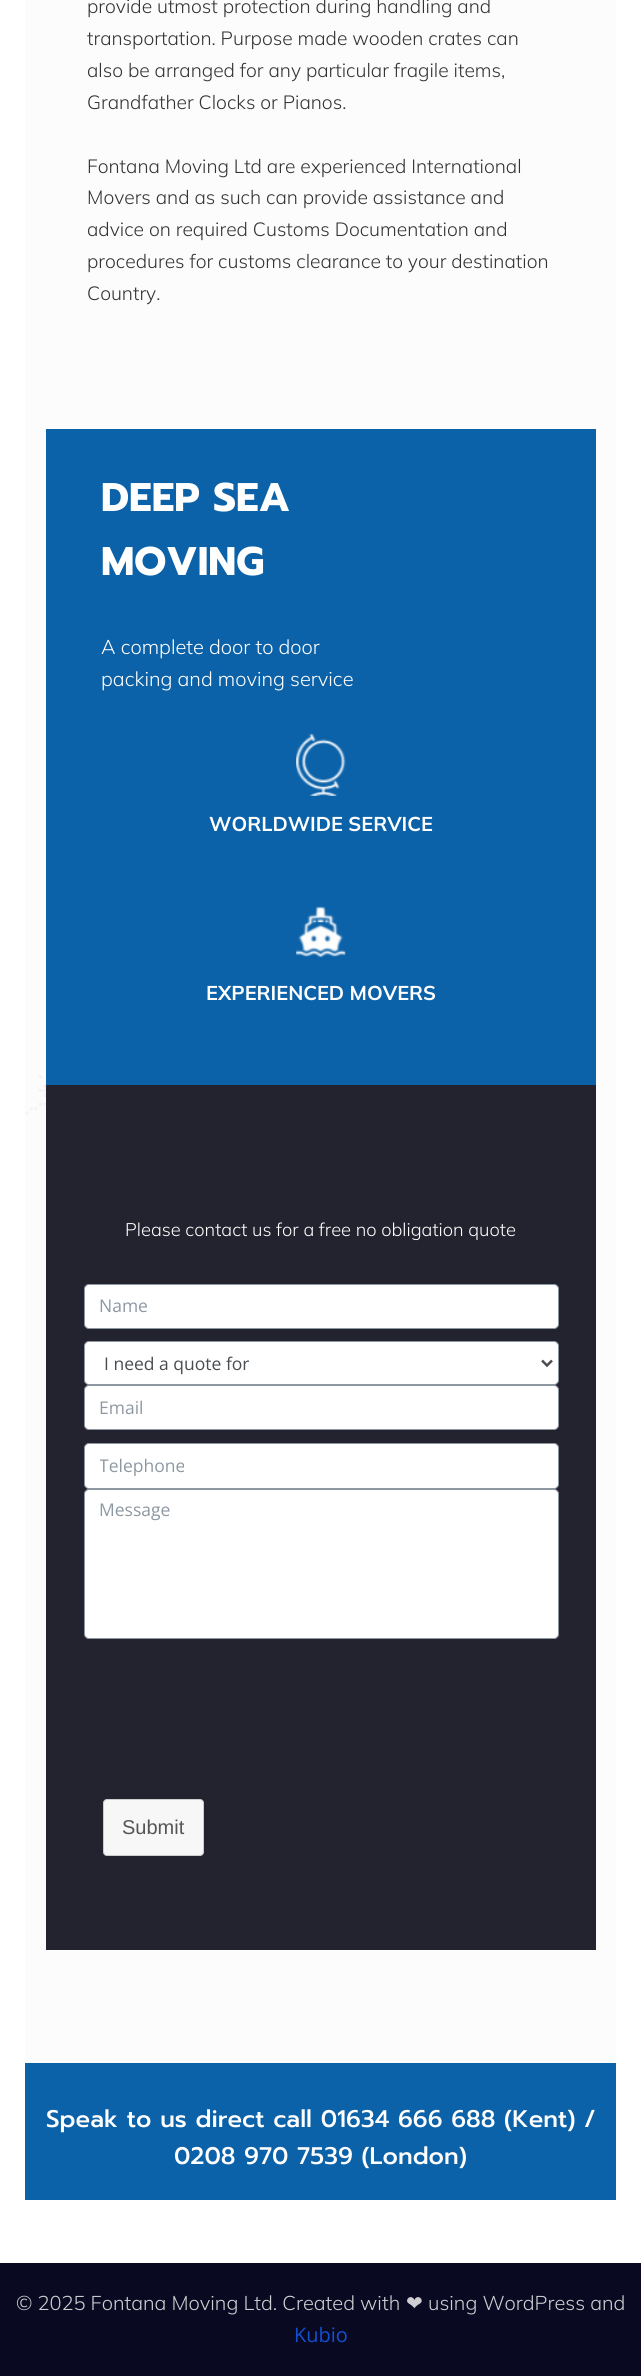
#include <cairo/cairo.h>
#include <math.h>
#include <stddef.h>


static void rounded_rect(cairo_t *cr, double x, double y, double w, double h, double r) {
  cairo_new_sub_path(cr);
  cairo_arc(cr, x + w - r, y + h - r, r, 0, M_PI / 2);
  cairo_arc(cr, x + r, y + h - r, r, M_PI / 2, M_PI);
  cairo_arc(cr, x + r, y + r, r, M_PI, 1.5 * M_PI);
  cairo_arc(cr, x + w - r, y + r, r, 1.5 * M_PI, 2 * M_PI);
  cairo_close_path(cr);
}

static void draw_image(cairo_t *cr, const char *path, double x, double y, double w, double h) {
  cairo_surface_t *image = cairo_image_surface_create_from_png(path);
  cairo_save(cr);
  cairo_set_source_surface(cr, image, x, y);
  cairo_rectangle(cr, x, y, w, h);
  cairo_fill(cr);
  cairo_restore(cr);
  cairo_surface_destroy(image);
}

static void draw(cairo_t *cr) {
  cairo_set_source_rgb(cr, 1, 1, 1);
  cairo_paint(cr);
  cairo_set_source_rgb(cr, 252 / 255.0, 252 / 255.0, 253 / 255.0);
  cairo_rectangle(cr, 25, 0, 591, 2063);
  cairo_fill(cr);
  draw_image(cr, "images/1.png", 25, 1075, 21, 40);
  cairo_set_source_rgb(cr, 12 / 255.0, 98 / 255.0, 168 / 255.0);
  cairo_rectangle(cr, 46, 429, 550, 656);
  cairo_fill(cr);
  draw_image(cr, "images/2.png", 296, 733, 50, 63);
  draw_image(cr, "images/3.png", 296, 906, 50, 52);
  cairo_set_source_rgb(cr, 35 / 255.0, 35 / 255.0, 48 / 255.0);
  cairo_rectangle(cr, 46, 1085, 550, 865);
  cairo_fill(cr);
  cairo_set_source_rgb(cr, 1, 1, 1);
  rounded_rect(cr, 84.5, 1284.5, 474, 44, 4.5);
  cairo_fill_preserve(cr);
  cairo_set_source_rgb(cr, 142 / 255.0, 152 / 255.0, 162 / 255.0);
  cairo_set_line_width(cr, 1);
  cairo_stroke(cr);
  cairo_set_source_rgb(cr, 1, 1, 1);
  rounded_rect(cr, 84.5, 1341.5, 474, 43, 4.5);
  cairo_fill_preserve(cr);
  cairo_set_source_rgb(cr, 142 / 255.0, 152 / 255.0, 162 / 255.0);
  cairo_stroke(cr);
  cairo_new_path(cr);
  cairo_move_to(cr, 542, 1360.5);
  cairo_line_to(cr, 547, 1365.5);
  cairo_line_to(cr, 552, 1360.5);
  cairo_set_source_rgb(cr, 73 / 255.0, 77 / 255.0, 80 / 255.0);
  cairo_set_line_width(cr, 2.5);
  cairo_stroke(cr);
  cairo_set_source_rgb(cr, 1, 1, 1);
  rounded_rect(cr, 84.5, 1385.5, 474, 44, 4.5);
  cairo_fill_preserve(cr);
  cairo_set_source_rgb(cr, 142 / 255.0, 152 / 255.0, 162 / 255.0);
  cairo_set_line_width(cr, 1);
  cairo_stroke(cr);
  cairo_set_source_rgb(cr, 1, 1, 1);
  rounded_rect(cr, 84.5, 1443.5, 474, 45, 4.5);
  cairo_fill_preserve(cr);
  cairo_set_source_rgb(cr, 142 / 255.0, 152 / 255.0, 162 / 255.0);
  cairo_stroke(cr);
  cairo_set_source_rgb(cr, 1, 1, 1);
  rounded_rect(cr, 84.5, 1489.5, 474, 149, 4.5);
  cairo_fill_preserve(cr);
  cairo_set_source_rgb(cr, 142 / 255.0, 152 / 255.0, 162 / 255.0);
  cairo_stroke(cr);
  cairo_set_source_rgb(cr, 247 / 255.0, 247 / 255.0, 247 / 255.0);
  rounded_rect(cr, 103.5, 1799.5, 100, 56, 3.5);
  cairo_fill_preserve(cr);
  cairo_set_source_rgb(cr, 204 / 255.0, 204 / 255.0, 204 / 255.0);
  cairo_stroke(cr);
  cairo_set_source_rgb(cr, 12 / 255.0, 98 / 255.0, 168 / 255.0);
  cairo_rectangle(cr, 25, 2063, 591, 137);
  cairo_fill(cr);
  cairo_set_source_rgb(cr, 9 / 255.0, 9 / 255.0, 33 / 255.0);
  cairo_rectangle(cr, 0, 2263, 641, 113);
  cairo_fill(cr);
  cairo_select_font_face(cr, "Mulish Light", CAIRO_FONT_SLANT_NORMAL, CAIRO_FONT_WEIGHT_NORMAL);
  cairo_set_font_size(cr, 19.2);
  cairo_set_source_rgb(cr, 51 / 255.0, 51 / 255.0, 51 / 255.0);
  cairo_move_to(cr, 87, 13);
  cairo_show_text(cr, "provide utmost protection during handling and");
  cairo_move_to(cr, 87, 45);
  cairo_show_text(cr, "transportation. Purpose made wooden crates can");
  cairo_move_to(cr, 87, 77);
  cairo_show_text(cr, "also be arranged for any particular fragile items,");
  cairo_move_to(cr, 87, 109);
  cairo_show_text(cr, "Grandfather Clocks or Pianos.");
  cairo_move_to(cr, 87, 173);
  cairo_show_text(cr, "Fontana Moving Ltd are experienced International");
  cairo_move_to(cr, 87, 204);
  cairo_show_text(cr, "Movers and as such can provide assistance and");
  cairo_move_to(cr, 87, 236);
  cairo_show_text(cr, "advice on required Customs Documentation and");
  cairo_move_to(cr, 87, 268);
  cairo_show_text(cr, "procedures for customs clearance to your destination");
  cairo_move_to(cr, 87, 300);
  cairo_show_text(cr, "Country.");
  cairo_select_font_face(cr, "Prompt", CAIRO_FONT_SLANT_NORMAL, CAIRO_FONT_WEIGHT_BOLD);
  cairo_set_font_size(cr, 40);
  cairo_set_source_rgb(cr, 1, 1, 1);
  cairo_move_to(cr, 101, 511);
  cairo_show_text(cr, "DEEP SEA");
  cairo_move_to(cr, 101, 575);
  cairo_show_text(cr, "MOVING");
  cairo_select_font_face(cr, "Mulish Light", CAIRO_FONT_SLANT_NORMAL, CAIRO_FONT_WEIGHT_NORMAL);
  cairo_set_font_size(cr, 20);
  cairo_move_to(cr, 101, 654);
  cairo_show_text(cr, "A complete door to door");
  cairo_move_to(cr, 101, 686);
  cairo_show_text(cr, "packing and moving service");
  cairo_select_font_face(cr, "Mulish", CAIRO_FONT_SLANT_NORMAL, CAIRO_FONT_WEIGHT_BOLD);
  cairo_move_to(cr, 209, 831);
  cairo_show_text(cr, "WORLDWIDE SERVICE");
  cairo_move_to(cr, 206, 1000);
  cairo_show_text(cr, "EXPERIENCED MOVERS");
  cairo_select_font_face(cr, "Mulish Light", CAIRO_FONT_SLANT_NORMAL, CAIRO_FONT_WEIGHT_NORMAL);
  cairo_set_font_size(cr, 18.3);
  cairo_move_to(cr, 125, 1236);
  cairo_show_text(cr, "Please contact us for a free no obligation quote");
  cairo_select_font_face(cr, "Open Sans", CAIRO_FONT_SLANT_NORMAL, CAIRO_FONT_WEIGHT_NORMAL);
  cairo_set_font_size(cr, 17.5);
  cairo_set_source_rgb(cr, 142 / 255.0, 152 / 255.0, 162 / 255.0);
  cairo_move_to(cr, 99, 1312);
  cairo_show_text(cr, "Name");
  cairo_set_source_rgb(cr, 73 / 255.0, 77 / 255.0, 80 / 255.0);
  cairo_move_to(cr, 104, 1370);
  cairo_show_text(cr, "I need a quote for");
  cairo_set_source_rgb(cr, 142 / 255.0, 152 / 255.0, 162 / 255.0);
  cairo_move_to(cr, 99, 1414);
  cairo_show_text(cr, "Email");
  cairo_save(cr);
  cairo_rectangle(cr, 100, 1453, 443, 23);
  cairo_clip(cr);
  cairo_move_to(cr, 99, 1472);
  cairo_show_text(cr, "Telephone");
  cairo_restore(cr);
  cairo_move_to(cr, 99, 1516);
  cairo_show_text(cr, "Message");
  cairo_select_font_face(cr, "Liberation Sans", CAIRO_FONT_SLANT_NORMAL, CAIRO_FONT_WEIGHT_NORMAL);
  cairo_set_font_size(cr, 20);
  cairo_set_source_rgb(cr, 85 / 255.0, 85 / 255.0, 85 / 255.0);
  cairo_move_to(cr, 122, 1834);
  cairo_show_text(cr, "Submit");
  cairo_select_font_face(cr, "Prompt Medium", CAIRO_FONT_SLANT_NORMAL, CAIRO_FONT_WEIGHT_NORMAL);
  cairo_set_font_size(cr, 24);
  cairo_set_source_rgb(cr, 1, 1, 1);
  cairo_move_to(cr, 46, 2127);
  cairo_show_text(cr, "Speak to us direct call 01634 666 688 (Kent) /");
  cairo_move_to(cr, 174, 2164);
  cairo_show_text(cr, "0208 970 7539 (London)");
  cairo_select_font_face(cr, "Mulish Light", CAIRO_FONT_SLANT_NORMAL, CAIRO_FONT_WEIGHT_NORMAL);
  cairo_set_font_size(cr, 20);
  cairo_set_source_rgb(cr, 206 / 255.0, 206 / 255.0, 211 / 255.0);
  cairo_move_to(cr, 16, 2310);
  cairo_show_text(cr, "© 2025 Fontana Moving Ltd. Created with");
  cairo_select_font_face(cr, "DejaVu Sans", CAIRO_FONT_SLANT_NORMAL, CAIRO_FONT_WEIGHT_NORMAL);
  cairo_move_to(cr, 406, 2310);
  cairo_show_text(cr, "❤");
  cairo_select_font_face(cr, "Mulish Light", CAIRO_FONT_SLANT_NORMAL, CAIRO_FONT_WEIGHT_NORMAL);
  cairo_move_to(cr, 428, 2310);
  cairo_show_text(cr, "using WordPress and");
  cairo_select_font_face(cr, "Open Sans", CAIRO_FONT_SLANT_NORMAL, CAIRO_FONT_WEIGHT_NORMAL);
  cairo_set_source_rgb(cr, 20 / 255.0, 79 / 255.0, 209 / 255.0);
  cairo_move_to(cr, 294, 2342);
  cairo_show_text(cr, "Kubio");
}

int main(void) {
  cairo_surface_t *surface = cairo_image_surface_create(CAIRO_FORMAT_RGB24, 641, 2376);
  cairo_t *cr = cairo_create(surface);
  cairo_font_options_t *options = cairo_font_options_create();
  cairo_font_options_set_hint_metrics(options, CAIRO_HINT_METRICS_OFF);
  cairo_font_options_set_hint_style(options, CAIRO_HINT_STYLE_NONE);
  cairo_set_font_options(cr, options);
  cairo_set_miter_limit(cr, 4);
  draw(cr);
  cairo_surface_write_to_png(surface, "out.png");
  cairo_font_options_destroy(options);
  cairo_destroy(cr);
  cairo_surface_destroy(surface);
  return 0;
}
